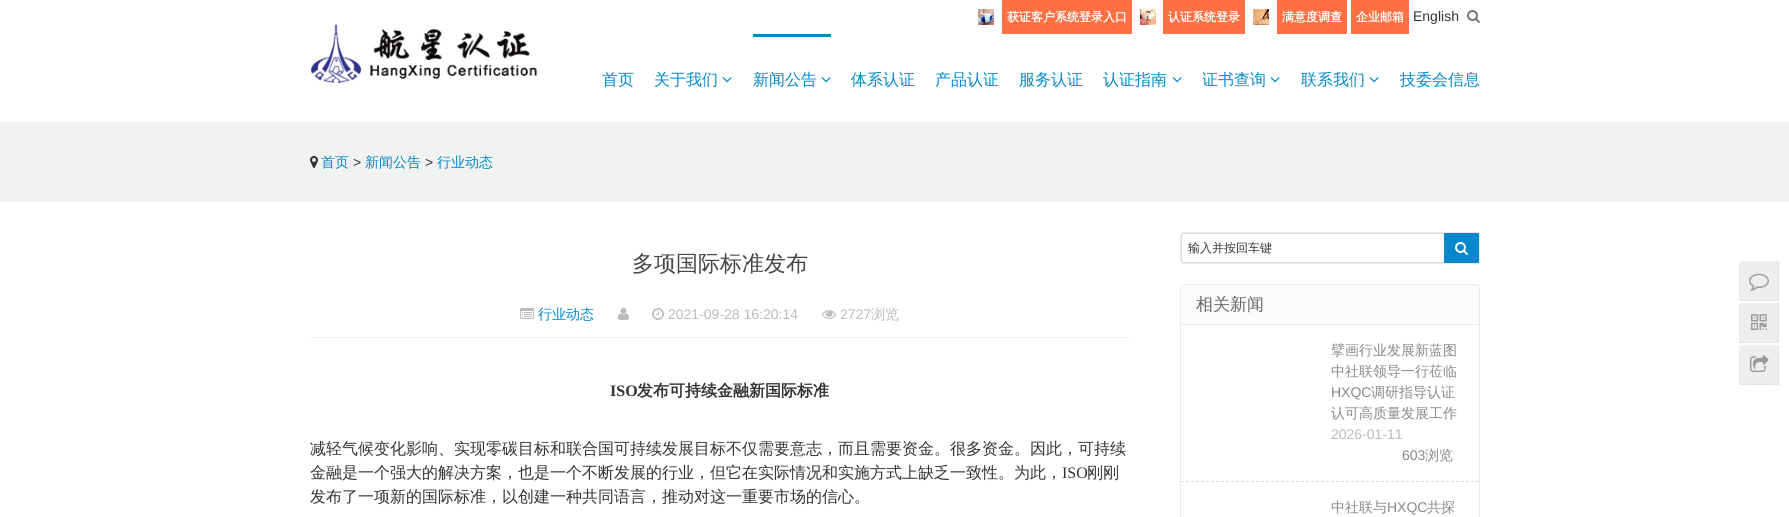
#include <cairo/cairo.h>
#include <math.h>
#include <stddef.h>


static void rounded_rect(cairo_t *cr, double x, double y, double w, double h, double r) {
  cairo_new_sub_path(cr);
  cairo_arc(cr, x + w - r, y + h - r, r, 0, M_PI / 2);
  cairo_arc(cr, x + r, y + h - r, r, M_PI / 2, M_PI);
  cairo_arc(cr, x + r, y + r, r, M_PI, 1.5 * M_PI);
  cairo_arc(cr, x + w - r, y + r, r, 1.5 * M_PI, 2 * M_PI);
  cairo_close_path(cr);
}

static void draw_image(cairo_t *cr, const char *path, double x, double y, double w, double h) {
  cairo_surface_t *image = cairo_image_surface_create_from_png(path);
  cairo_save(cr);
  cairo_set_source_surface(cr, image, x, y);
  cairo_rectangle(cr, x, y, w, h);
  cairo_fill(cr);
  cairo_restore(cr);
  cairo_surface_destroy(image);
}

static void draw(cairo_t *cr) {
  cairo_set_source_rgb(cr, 1, 1, 1);
  cairo_paint(cr);
  draw_image(cr, "images/1.png", 310, 23, 227, 60);
  draw_image(cr, "images/2.png", 978, 9, 16, 16);
  cairo_set_source_rgb(cr, 1, 112 / 255.0, 67 / 255.0);
  cairo_rectangle(cr, 1002, 0, 130, 34);
  cairo_fill(cr);
  draw_image(cr, "images/3.png", 1140, 9, 16, 16);
  cairo_rectangle(cr, 1163, 0, 82, 34);
  cairo_fill(cr);
  draw_image(cr, "images/4.png", 1253, 9, 16, 16);
  cairo_rectangle(cr, 1277, 0, 70, 34);
  cairo_fill(cr);
  cairo_rectangle(cr, 1351, 0, 58, 34);
  cairo_fill(cr);
  draw_image(cr, "images/5.png", 1467, 10, 13, 13);
  draw_image(cr, "images/6.png", 722, 77, 10, 6);
  cairo_set_source_rgb(cr, 0, 135 / 255.0, 204 / 255.0);
  cairo_rectangle(cr, 753, 34, 78, 3);
  cairo_fill(cr);
  draw_image(cr, "images/7.png", 821, 77, 10, 6);
  draw_image(cr, "images/6.png", 1172, 77, 10, 6);
  draw_image(cr, "images/6.png", 1270, 77, 10, 6);
  draw_image(cr, "images/6.png", 1369, 77, 10, 6);
  cairo_set_source_rgb(cr, 241 / 255.0, 243 / 255.0, 241 / 255.0);
  cairo_rectangle(cr, 0, 122, 1789, 80);
  cairo_fill(cr);
  draw_image(cr, "images/8.png", 310, 156, 8, 12);
  cairo_set_source_rgb(cr, 238 / 255.0, 238 / 255.0, 238 / 255.0);
  cairo_rectangle(cr, 310, 337, 820, 1);
  cairo_fill(cr);
  draw_image(cr, "images/9.png", 520, 308, 14, 11);
  draw_image(cr, "images/10.png", 618, 308, 11, 12);
  draw_image(cr, "images/11.png", 652, 308, 12, 12);
  draw_image(cr, "images/12.png", 822, 310, 14, 9);
  rounded_rect(cr, 1180.5, 232.5, 299, 31, 3.5);
  cairo_set_source_rgb(cr, 234 / 255.0, 234 / 255.0, 234 / 255.0);
  cairo_set_line_width(cr, 1);
  cairo_stroke(cr);
  cairo_rectangle(cr, 1181.5, 233.5, 297, 29);
  cairo_set_source_rgb(cr, 221 / 255.0, 221 / 255.0, 221 / 255.0);
  cairo_stroke(cr);
  cairo_set_source_rgb(cr, 0, 135 / 255.0, 204 / 255.0);
  cairo_rectangle(cr, 1444, 233, 35, 30);
  cairo_fill(cr);
  draw_image(cr, "images/13.png", 1455, 242, 13, 13);
  rounded_rect(cr, 1180.5, 284.5, 299, 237, 3.5);
  cairo_set_source_rgb(cr, 234 / 255.0, 234 / 255.0, 234 / 255.0);
  cairo_stroke(cr);
  cairo_set_source_rgb(cr, 251 / 255.0, 251 / 255.0, 251 / 255.0);
  cairo_new_path(cr);
  cairo_move_to(cr, 1185, 285);
  cairo_line_to(cr, 1475, 285);
  cairo_curve_to(cr, 1477, 285, 1479, 287, 1479, 289);
  cairo_line_to(cr, 1479, 325);
  cairo_line_to(cr, 1181, 325);
  cairo_line_to(cr, 1181, 289);
  cairo_curve_to(cr, 1181, 287, 1183, 285, 1185, 285);
  cairo_close_path(cr);
  cairo_fill(cr);
  cairo_set_source_rgb(cr, 234 / 255.0, 234 / 255.0, 234 / 255.0);
  cairo_rectangle(cr, 1181, 324, 298, 1);
  cairo_fill(cr);
  cairo_new_path(cr);
  cairo_move_to(cr, 1181, 481.5);
  cairo_line_to(cr, 1479, 481.5);
  cairo_set_source_rgb(cr, 221 / 255.0, 221 / 255.0, 221 / 255.0);
  cairo_set_dash(cr, (double[]){3, 2}, 2, 0);
  cairo_stroke(cr);
  cairo_set_source_rgb(cr, 238 / 255.0, 238 / 255.0, 238 / 255.0);
  rounded_rect(cr, 1739, 261, 40, 40, 2);
  cairo_fill(cr);
  cairo_set_source_rgb(cr, 226 / 255.0, 226 / 255.0, 226 / 255.0);
  cairo_new_path(cr);
  cairo_move_to(cr, 1739, 299);
  cairo_curve_to(cr, 1739, 300, 1740, 301, 1741, 301);
  cairo_line_to(cr, 1777, 301);
  cairo_curve_to(cr, 1778, 301, 1779, 300, 1779, 299);
  cairo_line_to(cr, 1779, 263);
  cairo_curve_to(cr, 1779, 262, 1779, 262, 1778, 261);
  cairo_line_to(cr, 1778, 297);
  cairo_curve_to(cr, 1778, 298, 1778, 299, 1777, 300);
  cairo_curve_to(cr, 1773, 301, 1766, 300, 1762, 300);
  cairo_curve_to(cr, 1758, 300, 1742, 301, 1739, 299);
  cairo_close_path(cr);
  cairo_fill(cr);
  draw_image(cr, "images/14.png", 1749, 273, 20, 18);
  cairo_set_source_rgb(cr, 238 / 255.0, 238 / 255.0, 238 / 255.0);
  rounded_rect(cr, 1739, 303, 40, 40, 2);
  cairo_fill(cr);
  cairo_set_source_rgb(cr, 226 / 255.0, 226 / 255.0, 226 / 255.0);
  cairo_new_path(cr);
  cairo_move_to(cr, 1739, 341);
  cairo_curve_to(cr, 1739, 342, 1740, 343, 1741, 343);
  cairo_line_to(cr, 1777, 343);
  cairo_curve_to(cr, 1778, 343, 1779, 342, 1779, 341);
  cairo_line_to(cr, 1779, 305);
  cairo_curve_to(cr, 1779, 304, 1779, 304, 1778, 303);
  cairo_line_to(cr, 1778, 339);
  cairo_curve_to(cr, 1778, 340, 1778, 341, 1777, 342);
  cairo_curve_to(cr, 1773, 343, 1766, 342, 1762, 342);
  cairo_curve_to(cr, 1758, 342, 1742, 343, 1739, 341);
  cairo_close_path(cr);
  cairo_fill(cr);
  draw_image(cr, "images/15.png", 1751, 314, 16, 16);
  cairo_set_source_rgb(cr, 238 / 255.0, 238 / 255.0, 238 / 255.0);
  rounded_rect(cr, 1739, 345, 40, 40, 2);
  cairo_fill(cr);
  cairo_set_source_rgb(cr, 226 / 255.0, 226 / 255.0, 226 / 255.0);
  cairo_new_path(cr);
  cairo_move_to(cr, 1739, 383);
  cairo_curve_to(cr, 1739, 384, 1740, 385, 1741, 385);
  cairo_line_to(cr, 1777, 385);
  cairo_curve_to(cr, 1778, 385, 1779, 384, 1779, 383);
  cairo_line_to(cr, 1779, 347);
  cairo_curve_to(cr, 1779, 346, 1779, 346, 1778, 345);
  cairo_line_to(cr, 1778, 381);
  cairo_curve_to(cr, 1778, 382, 1778, 383, 1777, 384);
  cairo_curve_to(cr, 1773, 385, 1766, 384, 1762, 384);
  cairo_curve_to(cr, 1758, 384, 1742, 385, 1739, 383);
  cairo_close_path(cr);
  cairo_fill(cr);
  draw_image(cr, "images/16.png", 1750, 354, 19, 18);
  cairo_select_font_face(cr, "WenQuanYi Zen Hei", CAIRO_FONT_SLANT_NORMAL, CAIRO_FONT_WEIGHT_BOLD);
  cairo_set_font_size(cr, 12);
  cairo_set_source_rgb(cr, 1, 1, 1);
  cairo_move_to(cr, 1007, 21);
  cairo_show_text(cr, "获证客户系统登录入口");
  cairo_move_to(cr, 1168, 21);
  cairo_show_text(cr, "认证系统登录");
  cairo_move_to(cr, 1282, 21);
  cairo_show_text(cr, "满意度调查");
  cairo_move_to(cr, 1356, 21);
  cairo_show_text(cr, "企业邮箱");
  cairo_select_font_face(cr, "Liberation Sans", CAIRO_FONT_SLANT_NORMAL, CAIRO_FONT_WEIGHT_NORMAL);
  cairo_set_font_size(cr, 14);
  cairo_set_source_rgb(cr, 51 / 255.0, 51 / 255.0, 51 / 255.0);
  cairo_move_to(cr, 1413, 21);
  cairo_show_text(cr, "English");
  cairo_select_font_face(cr, "WenQuanYi Zen Hei Medium", CAIRO_FONT_SLANT_NORMAL, CAIRO_FONT_WEIGHT_NORMAL);
  cairo_set_font_size(cr, 16);
  cairo_set_source_rgb(cr, 0, 136 / 255.0, 204 / 255.0);
  cairo_move_to(cr, 602, 85);
  cairo_show_text(cr, "首页");
  cairo_move_to(cr, 654, 85);
  cairo_show_text(cr, "关于我们");
  cairo_move_to(cr, 753, 85);
  cairo_show_text(cr, "新闻公告");
  cairo_move_to(cr, 851, 85);
  cairo_show_text(cr, "体系认证");
  cairo_move_to(cr, 935, 85);
  cairo_show_text(cr, "产品认证");
  cairo_move_to(cr, 1019, 85);
  cairo_show_text(cr, "服务认证");
  cairo_move_to(cr, 1103, 85);
  cairo_show_text(cr, "认证指南");
  cairo_move_to(cr, 1202, 85);
  cairo_show_text(cr, "证书查询");
  cairo_move_to(cr, 1301, 85);
  cairo_show_text(cr, "联系我们");
  cairo_move_to(cr, 1400, 85);
  cairo_show_text(cr, "技委会信息");
  cairo_set_font_size(cr, 14);
  cairo_move_to(cr, 321, 167);
  cairo_show_text(cr, "首页");
  cairo_select_font_face(cr, "Liberation Sans", CAIRO_FONT_SLANT_NORMAL, CAIRO_FONT_WEIGHT_NORMAL);
  cairo_set_source_rgb(cr, 51 / 255.0, 51 / 255.0, 51 / 255.0);
  cairo_move_to(cr, 353, 167);
  cairo_show_text(cr, ">");
  cairo_select_font_face(cr, "WenQuanYi Zen Hei Medium", CAIRO_FONT_SLANT_NORMAL, CAIRO_FONT_WEIGHT_NORMAL);
  cairo_set_source_rgb(cr, 0, 136 / 255.0, 204 / 255.0);
  cairo_move_to(cr, 365, 167);
  cairo_show_text(cr, "新闻公告");
  cairo_select_font_face(cr, "Liberation Sans", CAIRO_FONT_SLANT_NORMAL, CAIRO_FONT_WEIGHT_NORMAL);
  cairo_set_source_rgb(cr, 51 / 255.0, 51 / 255.0, 51 / 255.0);
  cairo_move_to(cr, 425, 167);
  cairo_show_text(cr, ">");
  cairo_select_font_face(cr, "WenQuanYi Zen Hei Medium", CAIRO_FONT_SLANT_NORMAL, CAIRO_FONT_WEIGHT_NORMAL);
  cairo_set_source_rgb(cr, 0, 136 / 255.0, 204 / 255.0);
  cairo_move_to(cr, 437, 167);
  cairo_show_text(cr, "行业动态");
  cairo_set_font_size(cr, 22);
  cairo_set_source_rgb(cr, 68 / 255.0, 68 / 255.0, 68 / 255.0);
  cairo_move_to(cr, 632, 271);
  cairo_show_text(cr, "多项国际标准发布");
  cairo_set_font_size(cr, 14);
  cairo_set_source_rgb(cr, 0, 136 / 255.0, 204 / 255.0);
  cairo_move_to(cr, 538, 319);
  cairo_show_text(cr, "行业动态");
  cairo_select_font_face(cr, "Liberation Sans", CAIRO_FONT_SLANT_NORMAL, CAIRO_FONT_WEIGHT_NORMAL);
  cairo_set_source_rgb(cr, 187 / 255.0, 187 / 255.0, 187 / 255.0);
  cairo_move_to(cr, 668, 319);
  cairo_show_text(cr, "2021-09-28 16:20:14");
  cairo_move_to(cr, 840, 319);
  cairo_show_text(cr, "2727");
  cairo_select_font_face(cr, "WenQuanYi Zen Hei Medium", CAIRO_FONT_SLANT_NORMAL, CAIRO_FONT_WEIGHT_NORMAL);
  cairo_move_to(cr, 871, 319);
  cairo_show_text(cr, "浏览");
  cairo_select_font_face(cr, "Liberation Serif", CAIRO_FONT_SLANT_NORMAL, CAIRO_FONT_WEIGHT_BOLD);
  cairo_set_font_size(cr, 16);
  cairo_set_source_rgb(cr, 51 / 255.0, 51 / 255.0, 51 / 255.0);
  cairo_move_to(cr, 610, 396);
  cairo_show_text(cr, "ISO");
  cairo_select_font_face(cr, "WenQuanYi Zen Hei", CAIRO_FONT_SLANT_NORMAL, CAIRO_FONT_WEIGHT_BOLD);
  cairo_move_to(cr, 637, 396);
  cairo_show_text(cr, "发布可持续金融新国际标准");
  cairo_select_font_face(cr, "WenQuanYi Zen Hei Medium", CAIRO_FONT_SLANT_NORMAL, CAIRO_FONT_WEIGHT_NORMAL);
  cairo_move_to(cr, 310, 454);
  cairo_show_text(cr, "减轻气候变化影响、实现零碳目标和联合国可持续发展目标不仅需要意志，而且需要资金。很多资金。因此，可持续");
  cairo_move_to(cr, 310, 478);
  cairo_show_text(cr, "金融是一个强大的解决方案，也是一个不断发展的行业，但它在实际情况和实施方式上缺乏一致性。为此，");
  cairo_select_font_face(cr, "Liberation Serif", CAIRO_FONT_SLANT_NORMAL, CAIRO_FONT_WEIGHT_NORMAL);
  cairo_move_to(cr, 1062, 478);
  cairo_show_text(cr, "ISO");
  cairo_select_font_face(cr, "WenQuanYi Zen Hei Medium", CAIRO_FONT_SLANT_NORMAL, CAIRO_FONT_WEIGHT_NORMAL);
  cairo_move_to(cr, 1087, 478);
  cairo_show_text(cr, "刚刚");
  cairo_move_to(cr, 310, 502);
  cairo_show_text(cr, "发布了一项新的国际标准，以创建一种共同语言，推动对这一重要市场的信心。");
  cairo_set_font_size(cr, 12);
  cairo_move_to(cr, 1188, 252);
  cairo_show_text(cr, "输入并按回车键");
  cairo_set_font_size(cr, 17);
  cairo_set_source_rgb(cr, 102 / 255.0, 102 / 255.0, 102 / 255.0);
  cairo_move_to(cr, 1196, 310);
  cairo_show_text(cr, "相关新闻");
  cairo_set_font_size(cr, 14);
  cairo_set_source_rgb(cr, 136 / 255.0, 136 / 255.0, 136 / 255.0);
  cairo_move_to(cr, 1331, 355);
  cairo_show_text(cr, "擘画行业发展新蓝图");
  cairo_move_to(cr, 1331, 376);
  cairo_show_text(cr, "中社联领导一行莅临");
  cairo_select_font_face(cr, "Liberation Sans", CAIRO_FONT_SLANT_NORMAL, CAIRO_FONT_WEIGHT_NORMAL);
  cairo_move_to(cr, 1331, 397);
  cairo_show_text(cr, "HXQC");
  cairo_select_font_face(cr, "WenQuanYi Zen Hei Medium", CAIRO_FONT_SLANT_NORMAL, CAIRO_FONT_WEIGHT_NORMAL);
  cairo_move_to(cr, 1371, 397);
  cairo_show_text(cr, "调研指导认证");
  cairo_move_to(cr, 1331, 418);
  cairo_show_text(cr, "认可高质量发展工作");
  cairo_select_font_face(cr, "Liberation Sans", CAIRO_FONT_SLANT_NORMAL, CAIRO_FONT_WEIGHT_NORMAL);
  cairo_set_source_rgb(cr, 187 / 255.0, 187 / 255.0, 187 / 255.0);
  cairo_move_to(cr, 1331, 439);
  cairo_show_text(cr, "2026-01-11");
  cairo_set_source_rgb(cr, 136 / 255.0, 136 / 255.0, 136 / 255.0);
  cairo_move_to(cr, 1402, 460);
  cairo_show_text(cr, "603");
  cairo_select_font_face(cr, "WenQuanYi Zen Hei Medium", CAIRO_FONT_SLANT_NORMAL, CAIRO_FONT_WEIGHT_NORMAL);
  cairo_move_to(cr, 1425, 460);
  cairo_show_text(cr, "浏览");
  cairo_move_to(cr, 1331, 512);
  cairo_show_text(cr, "中社联与");
  cairo_select_font_face(cr, "Liberation Sans", CAIRO_FONT_SLANT_NORMAL, CAIRO_FONT_WEIGHT_NORMAL);
  cairo_move_to(cr, 1387, 512);
  cairo_show_text(cr, "HXQC");
  cairo_select_font_face(cr, "WenQuanYi Zen Hei Medium", CAIRO_FONT_SLANT_NORMAL, CAIRO_FONT_WEIGHT_NORMAL);
  cairo_move_to(cr, 1427, 512);
  cairo_show_text(cr, "共探");
}

int main(void) {
  cairo_surface_t *surface = cairo_image_surface_create(CAIRO_FORMAT_RGB24, 1789, 517);
  cairo_t *cr = cairo_create(surface);
  cairo_font_options_t *options = cairo_font_options_create();
  cairo_font_options_set_hint_metrics(options, CAIRO_HINT_METRICS_OFF);
  cairo_font_options_set_hint_style(options, CAIRO_HINT_STYLE_NONE);
  cairo_set_font_options(cr, options);
  cairo_set_miter_limit(cr, 4);
  draw(cr);
  cairo_surface_write_to_png(surface, "out.png");
  cairo_font_options_destroy(options);
  cairo_destroy(cr);
  cairo_surface_destroy(surface);
  return 0;
}
